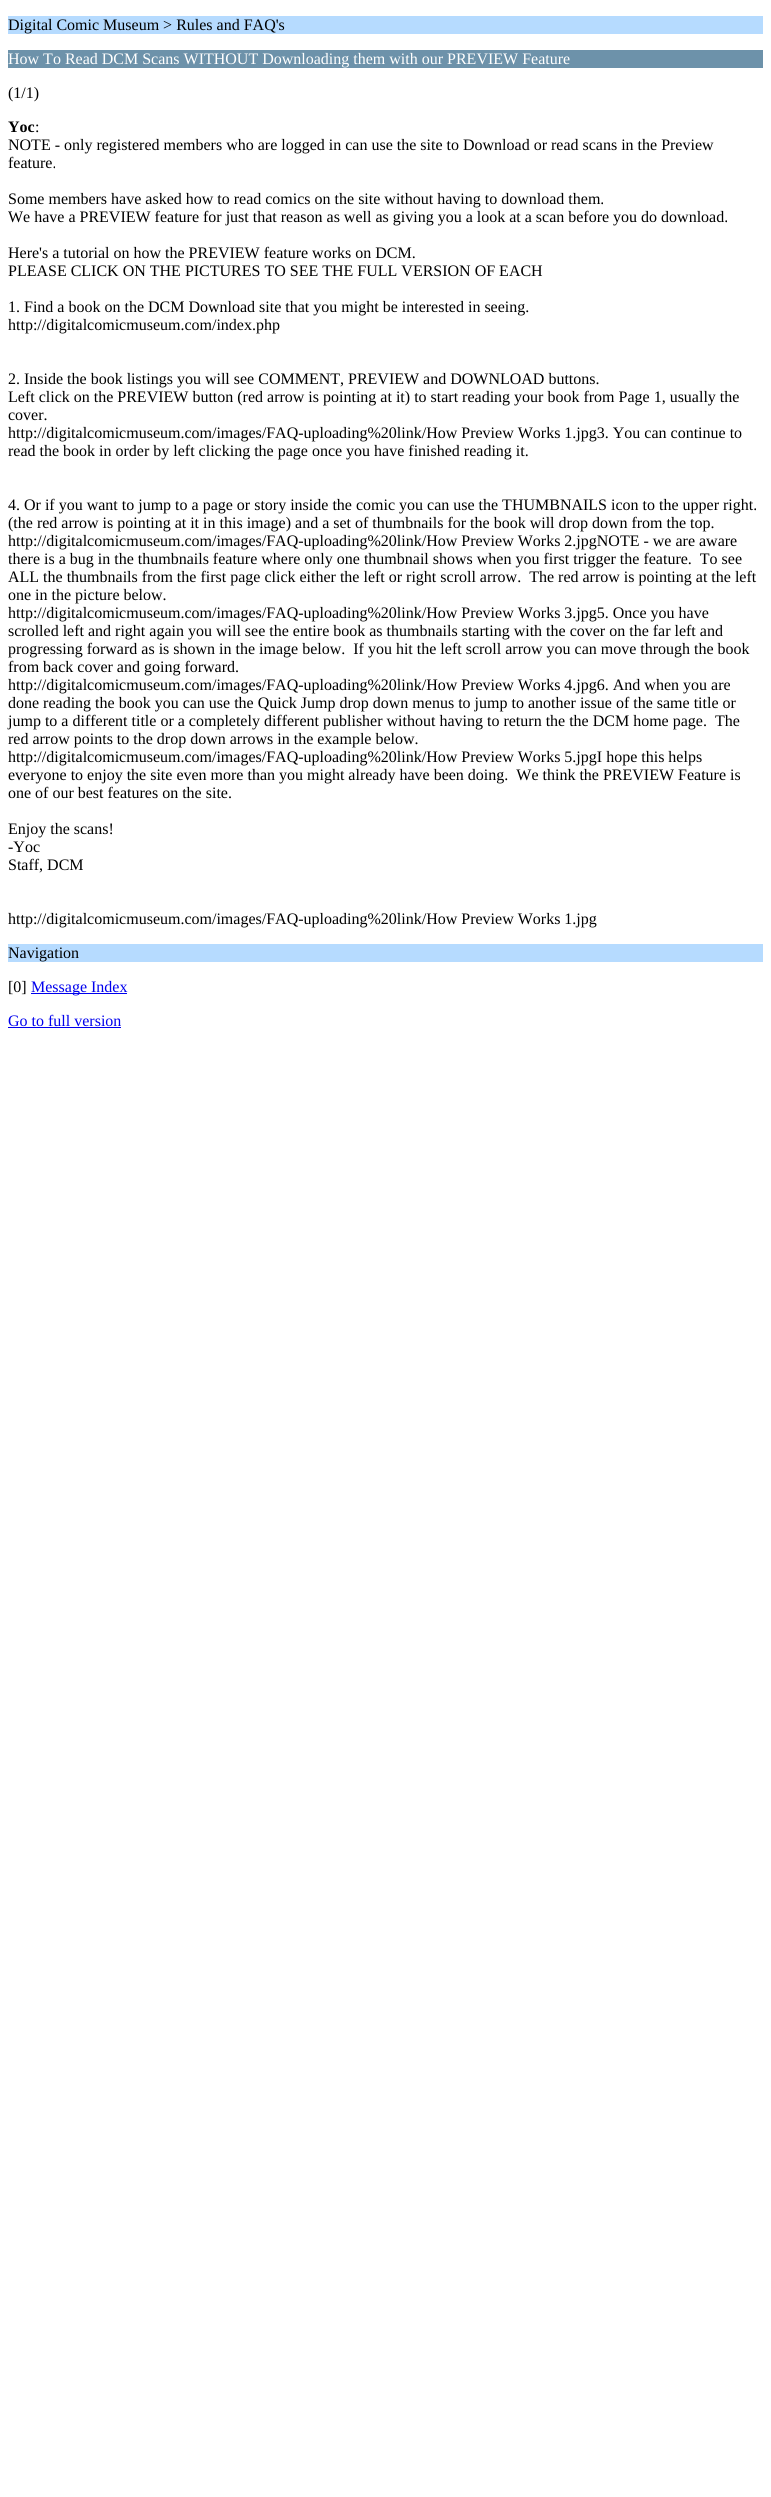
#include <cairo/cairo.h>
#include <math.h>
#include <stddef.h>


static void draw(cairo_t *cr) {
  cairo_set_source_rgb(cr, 1, 1, 1);
  cairo_paint(cr);
  cairo_set_source_rgb(cr, 182 / 255.0, 219 / 255.0, 1);
  cairo_rectangle(cr, 8, 16, 755, 18);
  cairo_fill(cr);
  cairo_set_source_rgb(cr, 109 / 255.0, 146 / 255.0, 170 / 255.0);
  cairo_rectangle(cr, 8, 50, 755, 18);
  cairo_fill(cr);
  cairo_set_source_rgb(cr, 182 / 255.0, 219 / 255.0, 1);
  cairo_rectangle(cr, 8, 944, 755, 18);
  cairo_fill(cr);
  cairo_set_source_rgb(cr, 0, 0, 238 / 255.0);
  cairo_rectangle(cr, 31, 993, 96, 1);
  cairo_fill(cr);
  cairo_rectangle(cr, 8, 1027, 113, 1);
  cairo_fill(cr);
  cairo_select_font_face(cr, "Liberation Serif", CAIRO_FONT_SLANT_NORMAL, CAIRO_FONT_WEIGHT_NORMAL);
  cairo_set_font_size(cr, 16);
  cairo_set_source_rgb(cr, 0, 0, 0);
  cairo_move_to(cr, 8, 30);
  cairo_show_text(cr, "Digital Comic Museum > Rules and FAQ's");
  cairo_set_source_rgb(cr, 1, 1, 1);
  cairo_move_to(cr, 8, 64);
  cairo_show_text(cr, "How To Read DCM Scans WITHOUT Downloading them with our PREVIEW Feature");
  cairo_set_source_rgb(cr, 0, 0, 0);
  cairo_move_to(cr, 8, 98);
  cairo_show_text(cr, "(1/1)");
  cairo_select_font_face(cr, "Liberation Serif", CAIRO_FONT_SLANT_NORMAL, CAIRO_FONT_WEIGHT_BOLD);
  cairo_move_to(cr, 8, 132);
  cairo_show_text(cr, "Yoc");
  cairo_select_font_face(cr, "Liberation Serif", CAIRO_FONT_SLANT_NORMAL, CAIRO_FONT_WEIGHT_NORMAL);
  cairo_move_to(cr, 35, 132);
  cairo_show_text(cr, ":");
  cairo_move_to(cr, 8, 150);
  cairo_show_text(cr, "NOTE - only registered members who are logged in can use the site to Download or read scans in the Preview");
  cairo_move_to(cr, 8, 168);
  cairo_show_text(cr, "feature.");
  cairo_move_to(cr, 8, 204);
  cairo_show_text(cr, "Some members have asked how to read comics on the site without having to download them.");
  cairo_move_to(cr, 8, 222);
  cairo_show_text(cr, "We have a PREVIEW feature for just that reason as well as giving you a look at a scan before you do download.");
  cairo_move_to(cr, 8, 258);
  cairo_show_text(cr, "Here's a tutorial on how the PREVIEW feature works on DCM.");
  cairo_move_to(cr, 8, 276);
  cairo_show_text(cr, "PLEASE CLICK ON THE PICTURES TO SEE THE FULL VERSION OF EACH");
  cairo_move_to(cr, 8, 312);
  cairo_show_text(cr, "1. Find a book on the DCM Download site that you might be interested in seeing.");
  cairo_move_to(cr, 8, 330);
  cairo_show_text(cr, "http://digitalcomicmuseum.com/index.php");
  cairo_move_to(cr, 8, 384);
  cairo_show_text(cr, "2. Inside the book listings you will see COMMENT, PREVIEW and DOWNLOAD buttons.");
  cairo_move_to(cr, 8, 402);
  cairo_show_text(cr, "Left click on the PREVIEW button (red arrow is pointing at it) to start reading your book from Page 1, usually the");
  cairo_move_to(cr, 8, 420);
  cairo_show_text(cr, "cover.");
  cairo_move_to(cr, 8, 438);
  cairo_show_text(cr, "http://digitalcomicmuseum.com/images/FAQ-uploading%20link/How Preview Works 1.jpg3. You can continue to");
  cairo_move_to(cr, 8, 456);
  cairo_show_text(cr, "read the book in order by left clicking the page once you have finished reading it.");
  cairo_move_to(cr, 8, 510);
  cairo_show_text(cr, "4. Or if you want to jump to a page or story inside the comic you can use the THUMBNAILS icon to the upper right.");
  cairo_move_to(cr, 8, 528);
  cairo_show_text(cr, "(the red arrow is pointing at it in this image) and a set of thumbnails for the book will drop down from the top.");
  cairo_move_to(cr, 8, 546);
  cairo_show_text(cr, "http://digitalcomicmuseum.com/images/FAQ-uploading%20link/How Preview Works 2.jpgNOTE - we are aware");
  cairo_move_to(cr, 8, 564);
  cairo_show_text(cr, "there is a bug in the thumbnails feature where only one thumbnail shows when you first trigger the feature.  To see");
  cairo_move_to(cr, 8, 582);
  cairo_show_text(cr, "ALL the thumbnails from the first page click either the left or right scroll arrow.  The red arrow is pointing at the left");
  cairo_move_to(cr, 8, 600);
  cairo_show_text(cr, "one in the picture below.");
  cairo_move_to(cr, 8, 618);
  cairo_show_text(cr, "http://digitalcomicmuseum.com/images/FAQ-uploading%20link/How Preview Works 3.jpg5. Once you have");
  cairo_move_to(cr, 8, 636);
  cairo_show_text(cr, "scrolled left and right again you will see the entire book as thumbnails starting with the cover on the far left and");
  cairo_move_to(cr, 8, 654);
  cairo_show_text(cr, "progressing forward as is shown in the image below.  If you hit the left scroll arrow you can move through the book");
  cairo_move_to(cr, 8, 672);
  cairo_show_text(cr, "from back cover and going forward.");
  cairo_move_to(cr, 8, 690);
  cairo_show_text(cr, "http://digitalcomicmuseum.com/images/FAQ-uploading%20link/How Preview Works 4.jpg6. And when you are");
  cairo_move_to(cr, 8, 708);
  cairo_show_text(cr, "done reading the book you can use the Quick Jump drop down menus to jump to another issue of the same title or");
  cairo_move_to(cr, 8, 726);
  cairo_show_text(cr, "jump to a different title or a completely different publisher without having to return the the DCM home page.  The");
  cairo_move_to(cr, 8, 744);
  cairo_show_text(cr, "red arrow points to the drop down arrows in the example below.");
  cairo_move_to(cr, 8, 762);
  cairo_show_text(cr, "http://digitalcomicmuseum.com/images/FAQ-uploading%20link/How Preview Works 5.jpgI hope this helps");
  cairo_move_to(cr, 8, 780);
  cairo_show_text(cr, "everyone to enjoy the site even more than you might already have been doing.  We think the PREVIEW Feature is");
  cairo_move_to(cr, 8, 798);
  cairo_show_text(cr, "one of our best features on the site.");
  cairo_move_to(cr, 8, 834);
  cairo_show_text(cr, "Enjoy the scans!");
  cairo_move_to(cr, 8, 852);
  cairo_show_text(cr, "-Yoc");
  cairo_move_to(cr, 8, 870);
  cairo_show_text(cr, "Staff, DCM");
  cairo_move_to(cr, 8, 924);
  cairo_show_text(cr, "http://digitalcomicmuseum.com/images/FAQ-uploading%20link/How Preview Works 1.jpg");
  cairo_move_to(cr, 8, 958);
  cairo_show_text(cr, "Navigation");
  cairo_move_to(cr, 8, 992);
  cairo_show_text(cr, "[0]");
  cairo_set_source_rgb(cr, 0, 0, 238 / 255.0);
  cairo_move_to(cr, 31, 992);
  cairo_show_text(cr, "Message Index");
  cairo_move_to(cr, 8, 1026);
  cairo_show_text(cr, "Go to full version");
}

int main(void) {
  cairo_surface_t *surface = cairo_image_surface_create(CAIRO_FORMAT_RGB24, 771, 2497);
  cairo_t *cr = cairo_create(surface);
  cairo_font_options_t *options = cairo_font_options_create();
  cairo_font_options_set_hint_metrics(options, CAIRO_HINT_METRICS_OFF);
  cairo_font_options_set_hint_style(options, CAIRO_HINT_STYLE_NONE);
  cairo_set_font_options(cr, options);
  cairo_set_miter_limit(cr, 4);
  draw(cr);
  cairo_surface_write_to_png(surface, "out.png");
  cairo_font_options_destroy(options);
  cairo_destroy(cr);
  cairo_surface_destroy(surface);
  return 0;
}
